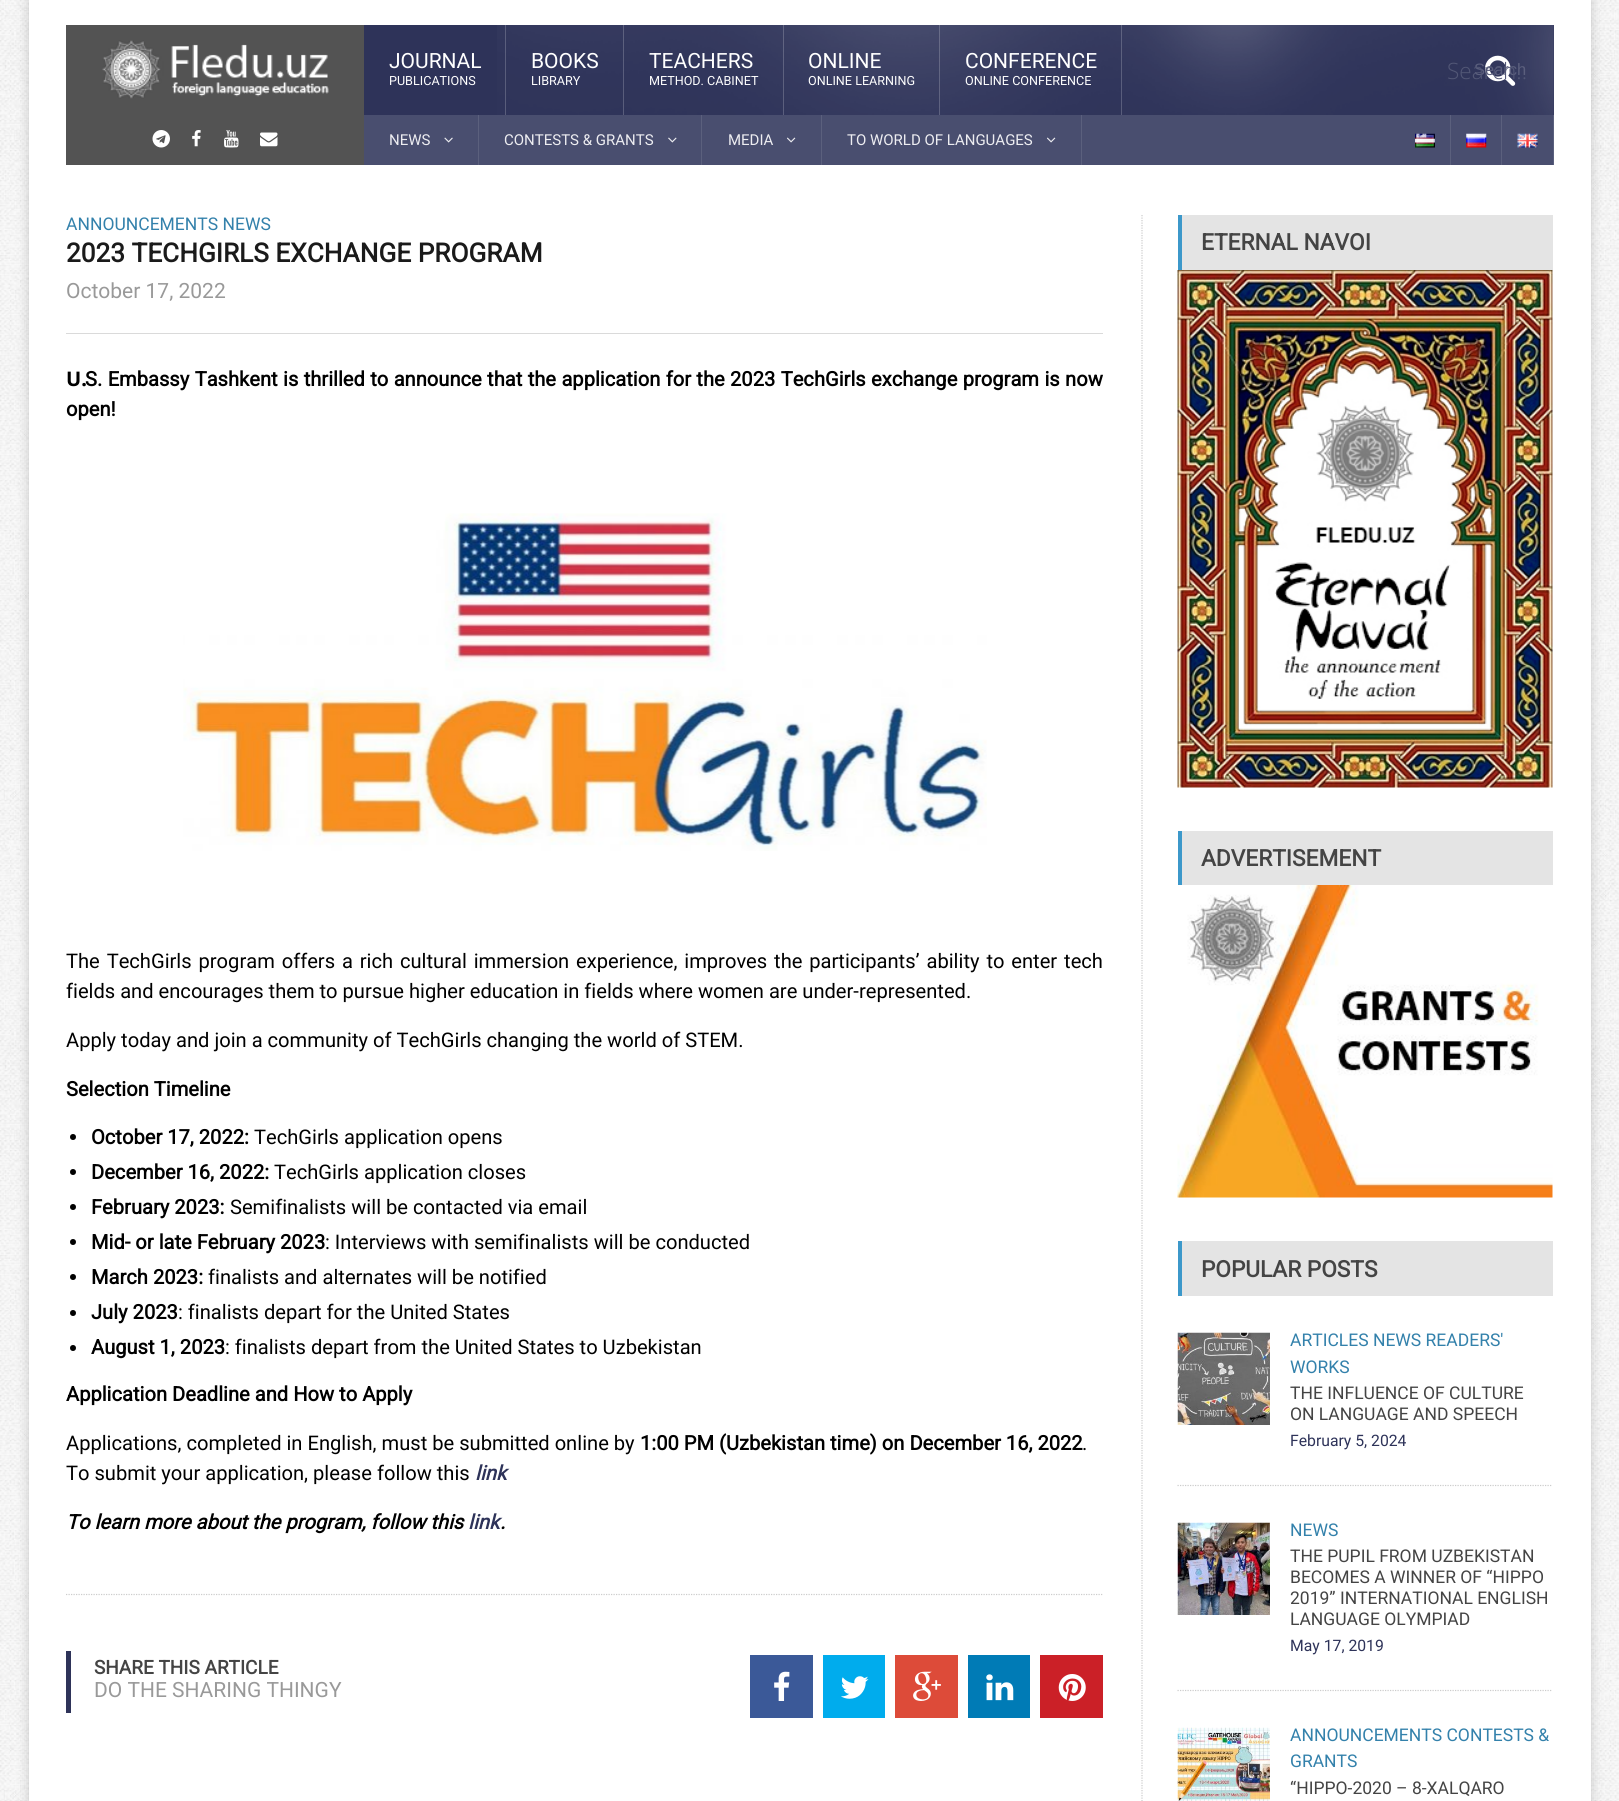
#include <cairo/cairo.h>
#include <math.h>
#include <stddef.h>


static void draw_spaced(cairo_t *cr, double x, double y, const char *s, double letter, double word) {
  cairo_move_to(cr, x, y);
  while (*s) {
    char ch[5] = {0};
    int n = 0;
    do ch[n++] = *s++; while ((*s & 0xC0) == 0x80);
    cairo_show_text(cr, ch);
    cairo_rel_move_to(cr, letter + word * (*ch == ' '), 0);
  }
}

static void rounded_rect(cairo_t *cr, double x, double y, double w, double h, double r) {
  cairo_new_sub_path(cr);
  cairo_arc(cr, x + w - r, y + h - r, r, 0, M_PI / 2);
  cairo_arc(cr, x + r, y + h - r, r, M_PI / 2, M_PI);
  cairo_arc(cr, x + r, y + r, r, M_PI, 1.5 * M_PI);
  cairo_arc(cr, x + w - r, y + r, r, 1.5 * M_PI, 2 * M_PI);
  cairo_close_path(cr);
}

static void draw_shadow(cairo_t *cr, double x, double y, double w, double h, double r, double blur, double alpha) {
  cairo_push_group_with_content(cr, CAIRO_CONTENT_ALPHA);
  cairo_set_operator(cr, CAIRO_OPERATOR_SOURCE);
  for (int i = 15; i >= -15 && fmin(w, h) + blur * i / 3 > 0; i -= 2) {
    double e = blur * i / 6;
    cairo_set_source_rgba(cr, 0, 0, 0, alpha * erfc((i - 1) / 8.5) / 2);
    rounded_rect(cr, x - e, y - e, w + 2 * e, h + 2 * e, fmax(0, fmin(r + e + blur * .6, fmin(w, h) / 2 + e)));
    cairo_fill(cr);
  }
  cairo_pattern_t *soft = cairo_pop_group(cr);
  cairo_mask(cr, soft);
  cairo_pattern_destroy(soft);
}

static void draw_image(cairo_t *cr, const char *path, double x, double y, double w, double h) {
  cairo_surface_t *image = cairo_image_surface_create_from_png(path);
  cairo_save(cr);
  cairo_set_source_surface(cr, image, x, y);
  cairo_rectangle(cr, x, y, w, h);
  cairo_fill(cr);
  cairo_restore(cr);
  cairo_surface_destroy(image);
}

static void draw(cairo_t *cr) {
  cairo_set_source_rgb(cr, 1, 1, 1);
  cairo_paint(cr);
  draw_image(cr, "images/1.png", 0, 0, 1619, 1801);
  cairo_set_source_rgb(cr, 0, 0, 0);
  draw_shadow(cr, 29, 0, 1562, 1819, 0, 6, 0.2);
  cairo_set_source_rgb(cr, 1, 1, 1);
  cairo_rectangle(cr, 29, 0, 1562, 1801);
  cairo_fill(cr);
  cairo_set_source_rgb(cr, 83 / 255.0, 83 / 255.0, 83 / 255.0);
  cairo_rectangle(cr, 66, 25, 298, 140);
  cairo_fill(cr);
  draw_image(cr, "images/2.png", 102, 40, 227, 59);
  draw_image(cr, "images/3.png", 152, 130, 18, 18);
  draw_image(cr, "images/4.png", 192, 130, 9, 17);
  draw_image(cr, "images/5.png", 224, 130, 15, 18);
  draw_image(cr, "images/6.png", 260, 132, 18, 15);
  cairo_set_source_rgb(cr, 46 / 255.0, 51 / 255.0, 89 / 255.0);
  cairo_rectangle(cr, 364, 25, 1190, 90);
  cairo_fill(cr);
  draw_image(cr, "images/7.png", 497, 25, 1057, 90);
  cairo_set_source_rgba(cr, 1, 1, 1, 0.2);
  cairo_rectangle(cr, 505, 25, 1, 90);
  cairo_fill(cr);
  cairo_rectangle(cr, 623, 25, 1, 90);
  cairo_fill(cr);
  cairo_rectangle(cr, 783, 25, 1, 90);
  cairo_fill(cr);
  cairo_rectangle(cr, 939, 25, 1, 90);
  cairo_fill(cr);
  cairo_rectangle(cr, 1121, 25, 1, 90);
  cairo_fill(cr);
  draw_image(cr, "images/8.png", 1485, 55, 31, 31);
  cairo_set_source_rgb(cr, 73 / 255.0, 78 / 255.0, 111 / 255.0);
  cairo_rectangle(cr, 364, 115, 1189, 50);
  cairo_fill(cr);
  cairo_set_source_rgb(cr, 91 / 255.0, 96 / 255.0, 125 / 255.0);
  cairo_rectangle(cr, 478, 115, 1, 50);
  cairo_fill(cr);
  draw_image(cr, "images/9.png", 444, 137, 9, 6);
  cairo_rectangle(cr, 701, 115, 1, 50);
  cairo_fill(cr);
  draw_image(cr, "images/10.png", 668, 137, 9, 6);
  cairo_rectangle(cr, 821, 115, 1, 50);
  cairo_fill(cr);
  draw_image(cr, "images/11.png", 787, 137, 9, 6);
  cairo_rectangle(cr, 1081, 115, 1, 50);
  cairo_fill(cr);
  draw_image(cr, "images/11.png", 1047, 137, 9, 6);
  cairo_rectangle(cr, 1450, 115, 1, 50);
  cairo_fill(cr);
  draw_image(cr, "images/12.png", 1415, 133, 20, 15);
  cairo_rectangle(cr, 1501, 115, 1, 50);
  cairo_fill(cr);
  draw_image(cr, "images/13.png", 1466, 133, 21, 15);
  cairo_rectangle(cr, 1553, 115, 1, 50);
  cairo_fill(cr);
  draw_image(cr, "images/14.png", 1517, 133, 21, 15);
  cairo_set_source_rgb(cr, 218 / 255.0, 218 / 255.0, 218 / 255.0);
  cairo_rectangle(cr, 66, 333, 1037, 1);
  cairo_fill(cr);
  draw_image(cr, "images/15.png", 183, 513, 804, 338);
  cairo_set_source_rgb(cr, 0, 0, 0);
  cairo_arc(cr, 73, 1137, 3, 0, 2 * M_PI);
  cairo_fill(cr);
  cairo_arc(cr, 73, 1172, 3, 0, 2 * M_PI);
  cairo_fill(cr);
  cairo_arc(cr, 73, 1207, 3, 0, 2 * M_PI);
  cairo_fill(cr);
  cairo_arc(cr, 73, 1242, 3, 0, 2 * M_PI);
  cairo_fill(cr);
  cairo_arc(cr, 73, 1277, 3, 0, 2 * M_PI);
  cairo_fill(cr);
  cairo_arc(cr, 73, 1313, 3, 0, 2 * M_PI);
  cairo_fill(cr);
  cairo_arc(cr, 73, 1348, 3, 0, 2 * M_PI);
  cairo_fill(cr);
  cairo_new_path(cr);
  cairo_move_to(cr, 66, 1594.5);
  cairo_line_to(cr, 1102.5, 1594.5);
  cairo_set_source_rgb(cr, 204 / 255.0, 204 / 255.0, 204 / 255.0);
  cairo_set_line_width(cr, 1.2);
  cairo_set_dash(cr, (double[]){1.25, 1.25}, 2, 0);
  cairo_stroke(cr);
  cairo_set_source_rgb(cr, 46 / 255.0, 51 / 255.0, 89 / 255.0);
  cairo_rectangle(cr, 66, 1651, 5, 62);
  cairo_fill(cr);
  cairo_set_source_rgb(cr, 59 / 255.0, 89 / 255.0, 152 / 255.0);
  cairo_rectangle(cr, 750, 1655, 63, 63);
  cairo_fill(cr);
  draw_image(cr, "images/16.png", 774, 1671, 16, 30);
  cairo_set_source_rgb(cr, 0, 172 / 255.0, 237 / 255.0);
  cairo_rectangle(cr, 823, 1655, 62, 63);
  cairo_fill(cr);
  draw_image(cr, "images/17.png", 841, 1676, 28, 23);
  cairo_set_source_rgb(cr, 221 / 255.0, 75 / 255.0, 57 / 255.0);
  cairo_rectangle(cr, 895, 1655, 63, 63);
  cairo_fill(cr);
  draw_image(cr, "images/18.png", 913, 1671, 28, 30);
  cairo_set_source_rgb(cr, 0, 123 / 255.0, 182 / 255.0);
  cairo_rectangle(cr, 968, 1655, 62, 63);
  cairo_fill(cr);
  draw_image(cr, "images/19.png", 986, 1674, 28, 27);
  cairo_set_source_rgb(cr, 203 / 255.0, 32 / 255.0, 39 / 255.0);
  cairo_rectangle(cr, 1040, 1655, 63, 63);
  cairo_fill(cr);
  draw_image(cr, "images/20.png", 1058, 1674, 28, 27);
  cairo_new_path(cr);
  cairo_move_to(cr, 1142, 215);
  cairo_line_to(cr, 1142, 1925);
  cairo_set_source_rgb(cr, 204 / 255.0, 204 / 255.0, 204 / 255.0);
  cairo_stroke(cr);
  cairo_set_source_rgb(cr, 228 / 255.0, 228 / 255.0, 228 / 255.0);
  cairo_rectangle(cr, 1182, 215, 371, 55);
  cairo_fill(cr);
  cairo_set_source_rgb(cr, 60 / 255.0, 152 / 255.0, 202 / 255.0);
  cairo_rectangle(cr, 1178, 215, 4, 55);
  cairo_fill(cr);
  draw_image(cr, "images/21.png", 1177, 270, 376, 518);
  cairo_set_source_rgb(cr, 228 / 255.0, 228 / 255.0, 228 / 255.0);
  cairo_rectangle(cr, 1182, 831, 371, 54);
  cairo_fill(cr);
  cairo_set_source_rgb(cr, 60 / 255.0, 152 / 255.0, 202 / 255.0);
  cairo_rectangle(cr, 1178, 831, 4, 54);
  cairo_fill(cr);
  draw_image(cr, "images/22.png", 1177, 885, 376, 313);
  cairo_set_source_rgb(cr, 228 / 255.0, 228 / 255.0, 228 / 255.0);
  cairo_rectangle(cr, 1182, 1241, 371, 55);
  cairo_fill(cr);
  cairo_set_source_rgb(cr, 60 / 255.0, 152 / 255.0, 202 / 255.0);
  cairo_rectangle(cr, 1178, 1241, 4, 55);
  cairo_fill(cr);
  cairo_new_path(cr);
  cairo_move_to(cr, 1177.5, 1485.5);
  cairo_line_to(cr, 1552.5, 1485.5);
  cairo_set_source_rgb(cr, 204 / 255.0, 204 / 255.0, 204 / 255.0);
  cairo_stroke(cr);
  draw_image(cr, "images/23.png", 1177, 1332, 93, 93);
  cairo_new_path(cr);
  cairo_move_to(cr, 1177.5, 1690.5);
  cairo_line_to(cr, 1552.5, 1690.5);
  cairo_stroke(cr);
  draw_image(cr, "images/24.png", 1177, 1522, 93, 93);
  draw_image(cr, "images/25.png", 1177, 1727, 93, 74);
  cairo_select_font_face(cr, "Roboto", CAIRO_FONT_SLANT_NORMAL, CAIRO_FONT_WEIGHT_NORMAL);
  cairo_set_font_size(cr, 21);
  cairo_set_source_rgb(cr, 1, 1, 1);
  cairo_move_to(cr, 389, 68);
  cairo_show_text(cr, "JOURNAL");
  cairo_set_font_size(cr, 12.6);
  cairo_move_to(cr, 389, 85);
  cairo_show_text(cr, "PUBLICATIONS");
  cairo_set_font_size(cr, 21);
  cairo_move_to(cr, 531, 68);
  cairo_show_text(cr, "BOOKS");
  cairo_set_font_size(cr, 12.6);
  cairo_move_to(cr, 531, 85);
  cairo_show_text(cr, "LIBRARY");
  cairo_set_font_size(cr, 21);
  cairo_move_to(cr, 649, 68);
  cairo_show_text(cr, "TEACHERS");
  cairo_set_font_size(cr, 12.6);
  cairo_move_to(cr, 649, 85);
  cairo_show_text(cr, "METHOD. CABINET");
  cairo_set_font_size(cr, 21);
  cairo_move_to(cr, 808, 68);
  cairo_show_text(cr, "ONLINE");
  cairo_set_font_size(cr, 12.6);
  cairo_move_to(cr, 808, 85);
  cairo_show_text(cr, "ONLINE LEARNING");
  cairo_set_font_size(cr, 21);
  cairo_move_to(cr, 965, 68);
  cairo_show_text(cr, "CONFERENCE");
  cairo_set_font_size(cr, 12.6);
  cairo_move_to(cr, 965, 85);
  cairo_show_text(cr, "ONLINE CONFERENCE");
  cairo_select_font_face(cr, "Liberation Sans", CAIRO_FONT_SLANT_NORMAL, CAIRO_FONT_WEIGHT_NORMAL);
  cairo_set_font_size(cr, 16.5);
  cairo_set_source_rgb(cr, 91 / 255.0, 95 / 255.0, 125 / 255.0);
  cairo_move_to(cr, 1474, 75);
  cairo_show_text(cr, "Search");
  cairo_select_font_face(cr, "Open Sans Light", CAIRO_FONT_SLANT_NORMAL, CAIRO_FONT_WEIGHT_NORMAL);
  cairo_set_font_size(cr, 22.5);
  cairo_set_source_rgb(cr, 82 / 255.0, 87 / 255.0, 118 / 255.0);
  cairo_move_to(cr, 1447, 79);
  cairo_show_text(cr, "Search..");
  cairo_select_font_face(cr, "Roboto", CAIRO_FONT_SLANT_NORMAL, CAIRO_FONT_WEIGHT_NORMAL);
  cairo_set_font_size(cr, 15);
  cairo_set_source_rgb(cr, 237 / 255.0, 237 / 255.0, 241 / 255.0);
  cairo_move_to(cr, 389, 145);
  cairo_show_text(cr, "NEWS");
  cairo_move_to(cr, 504, 145);
  cairo_show_text(cr, "CONTESTS & GRANTS");
  cairo_move_to(cr, 728, 145);
  cairo_show_text(cr, "MEDIA");
  cairo_move_to(cr, 847, 145);
  cairo_show_text(cr, "TO WORLD OF LANGUAGES");
  cairo_set_font_size(cr, 17.5);
  cairo_set_source_rgb(cr, 51 / 255.0, 129 / 255.0, 171 / 255.0);
  cairo_move_to(cr, 66, 230);
  cairo_show_text(cr, "ANNOUNCEMENTS NEWS");
  cairo_select_font_face(cr, "Roboto", CAIRO_FONT_SLANT_NORMAL, CAIRO_FONT_WEIGHT_BOLD);
  cairo_set_font_size(cr, 26.25);
  cairo_set_source_rgb(cr, 26 / 255.0, 26 / 255.0, 26 / 255.0);
  cairo_move_to(cr, 66, 262);
  cairo_show_text(cr, "2023 TECHGIRLS EXCHANGE PROGRAM");
  cairo_select_font_face(cr, "Roboto", CAIRO_FONT_SLANT_NORMAL, CAIRO_FONT_WEIGHT_NORMAL);
  cairo_set_font_size(cr, 21);
  cairo_set_source_rgb(cr, 153 / 255.0, 153 / 255.0, 153 / 255.0);
  cairo_move_to(cr, 66, 298);
  cairo_show_text(cr, "October 17, 2022");
  cairo_select_font_face(cr, "Noto Sans", CAIRO_FONT_SLANT_NORMAL, CAIRO_FONT_WEIGHT_BOLD);
  cairo_set_font_size(cr, 20.12);
  cairo_set_source_rgb(cr, 0, 0, 0);
  cairo_move_to(cr, 66, 386);
  cairo_show_text(cr, "U.");
  cairo_select_font_face(cr, "Roboto", CAIRO_FONT_SLANT_NORMAL, CAIRO_FONT_WEIGHT_BOLD);
  draw_spaced(cr, 85, 386, "S. Embassy Tashkent is thrilled to announce that the application for the 2023 TechGirls exchange program is now", 0, 0.4);
  cairo_move_to(cr, 66, 416);
  cairo_show_text(cr, "open!");
  cairo_select_font_face(cr, "Roboto", CAIRO_FONT_SLANT_NORMAL, CAIRO_FONT_WEIGHT_NORMAL);
  draw_spaced(cr, 66, 968, "The TechGirls program offers a rich cultural immersion experience, improves the participants’ ability to enter tech", 0, 1.9);
  cairo_move_to(cr, 66, 998);
  cairo_show_text(cr, "fields and encourages them to pursue higher education in fields where women are under-represented.");
  cairo_move_to(cr, 66, 1047);
  cairo_show_text(cr, "Apply today and join a community of TechGirls changing the world of STEM.");
  cairo_select_font_face(cr, "Roboto", CAIRO_FONT_SLANT_NORMAL, CAIRO_FONT_WEIGHT_BOLD);
  cairo_move_to(cr, 66, 1096);
  cairo_show_text(cr, "Selection Timeline");
  cairo_move_to(cr, 91, 1144);
  cairo_show_text(cr, "October 17, 2022:");
  cairo_select_font_face(cr, "Roboto", CAIRO_FONT_SLANT_NORMAL, CAIRO_FONT_WEIGHT_NORMAL);
  cairo_move_to(cr, 254, 1144);
  cairo_show_text(cr, "TechGirls application opens");
  cairo_select_font_face(cr, "Roboto", CAIRO_FONT_SLANT_NORMAL, CAIRO_FONT_WEIGHT_BOLD);
  cairo_move_to(cr, 91, 1179);
  cairo_show_text(cr, "December 16, 2022:");
  cairo_select_font_face(cr, "Roboto", CAIRO_FONT_SLANT_NORMAL, CAIRO_FONT_WEIGHT_NORMAL);
  cairo_move_to(cr, 274, 1179);
  cairo_show_text(cr, "TechGirls application closes");
  cairo_select_font_face(cr, "Roboto", CAIRO_FONT_SLANT_NORMAL, CAIRO_FONT_WEIGHT_BOLD);
  cairo_move_to(cr, 91, 1214);
  cairo_show_text(cr, "February 2023:");
  cairo_select_font_face(cr, "Roboto", CAIRO_FONT_SLANT_NORMAL, CAIRO_FONT_WEIGHT_NORMAL);
  cairo_move_to(cr, 230, 1214);
  cairo_show_text(cr, "Semifinalists will be contacted via email");
  cairo_select_font_face(cr, "Roboto", CAIRO_FONT_SLANT_NORMAL, CAIRO_FONT_WEIGHT_BOLD);
  cairo_move_to(cr, 91, 1249);
  cairo_show_text(cr, "Mid- or late February 2023");
  cairo_select_font_face(cr, "Roboto", CAIRO_FONT_SLANT_NORMAL, CAIRO_FONT_WEIGHT_NORMAL);
  cairo_move_to(cr, 325, 1249);
  cairo_show_text(cr, ": Interviews with semifinalists will be conducted");
  cairo_select_font_face(cr, "Roboto", CAIRO_FONT_SLANT_NORMAL, CAIRO_FONT_WEIGHT_BOLD);
  cairo_move_to(cr, 91, 1284);
  cairo_show_text(cr, "March 2023:");
  cairo_select_font_face(cr, "Roboto", CAIRO_FONT_SLANT_NORMAL, CAIRO_FONT_WEIGHT_NORMAL);
  cairo_move_to(cr, 208, 1284);
  cairo_show_text(cr, "finalists and alternates will be notified");
  cairo_select_font_face(cr, "Roboto", CAIRO_FONT_SLANT_NORMAL, CAIRO_FONT_WEIGHT_BOLD);
  cairo_move_to(cr, 91, 1319);
  cairo_show_text(cr, "July 2023");
  cairo_select_font_face(cr, "Roboto", CAIRO_FONT_SLANT_NORMAL, CAIRO_FONT_WEIGHT_NORMAL);
  cairo_move_to(cr, 178, 1319);
  cairo_show_text(cr, ": finalists depart for the United States");
  cairo_select_font_face(cr, "Roboto", CAIRO_FONT_SLANT_NORMAL, CAIRO_FONT_WEIGHT_BOLD);
  cairo_move_to(cr, 91, 1354);
  cairo_show_text(cr, "August 1, 2023");
  cairo_select_font_face(cr, "Roboto", CAIRO_FONT_SLANT_NORMAL, CAIRO_FONT_WEIGHT_NORMAL);
  cairo_move_to(cr, 225, 1354);
  cairo_show_text(cr, ": finalists depart from the United States to Uzbekistan");
  cairo_select_font_face(cr, "Roboto", CAIRO_FONT_SLANT_NORMAL, CAIRO_FONT_WEIGHT_BOLD);
  cairo_move_to(cr, 66, 1401);
  cairo_show_text(cr, "Application Deadline and How to Apply");
  cairo_select_font_face(cr, "Roboto", CAIRO_FONT_SLANT_NORMAL, CAIRO_FONT_WEIGHT_NORMAL);
  cairo_move_to(cr, 66, 1450);
  cairo_show_text(cr, "Applications, completed in English, must be submitted online by");
  cairo_select_font_face(cr, "Roboto", CAIRO_FONT_SLANT_NORMAL, CAIRO_FONT_WEIGHT_BOLD);
  cairo_move_to(cr, 640, 1450);
  cairo_show_text(cr, "1:00 PM (Uzbekistan time) on December 16, 2022");
  cairo_select_font_face(cr, "Roboto", CAIRO_FONT_SLANT_NORMAL, CAIRO_FONT_WEIGHT_NORMAL);
  cairo_move_to(cr, 1082, 1450);
  cairo_show_text(cr, ".");
  cairo_move_to(cr, 66, 1480);
  cairo_show_text(cr, "To submit your application, please follow this");
  cairo_select_font_face(cr, "Roboto", CAIRO_FONT_SLANT_ITALIC, CAIRO_FONT_WEIGHT_BOLD);
  cairo_set_source_rgb(cr, 46 / 255.0, 51 / 255.0, 89 / 255.0);
  cairo_move_to(cr, 475, 1480);
  cairo_show_text(cr, "link");
  cairo_set_source_rgb(cr, 0, 0, 0);
  cairo_move_to(cr, 66, 1529);
  cairo_show_text(cr, "To learn more about the program, follow this");
  cairo_set_source_rgb(cr, 46 / 255.0, 51 / 255.0, 89 / 255.0);
  cairo_move_to(cr, 468, 1529);
  cairo_show_text(cr, "link");
  cairo_set_source_rgb(cr, 0, 0, 0);
  cairo_move_to(cr, 500, 1529);
  cairo_show_text(cr, ".");
  cairo_select_font_face(cr, "Roboto", CAIRO_FONT_SLANT_NORMAL, CAIRO_FONT_WEIGHT_BOLD);
  cairo_set_font_size(cr, 19);
  cairo_set_source_rgb(cr, 68 / 255.0, 68 / 255.0, 68 / 255.0);
  cairo_move_to(cr, 94, 1674);
  cairo_show_text(cr, "SHARE THIS ARTICLE");
  cairo_select_font_face(cr, "Roboto", CAIRO_FONT_SLANT_NORMAL, CAIRO_FONT_WEIGHT_NORMAL);
  cairo_set_font_size(cr, 21);
  cairo_set_source_rgb(cr, 153 / 255.0, 153 / 255.0, 153 / 255.0);
  cairo_move_to(cr, 94, 1697);
  cairo_show_text(cr, "DO THE SHARING THINGY");
  cairo_select_font_face(cr, "Roboto", CAIRO_FONT_SLANT_NORMAL, CAIRO_FONT_WEIGHT_BOLD);
  cairo_set_font_size(cr, 22.75);
  cairo_set_source_rgb(cr, 68 / 255.0, 68 / 255.0, 68 / 255.0);
  cairo_move_to(cr, 1201, 250);
  cairo_show_text(cr, "ETERNAL NAVOI");
  cairo_move_to(cr, 1201, 866);
  cairo_show_text(cr, "ADVERTISEMENT");
  cairo_move_to(cr, 1201, 1277);
  cairo_show_text(cr, "POPULAR POSTS");
  cairo_select_font_face(cr, "Roboto", CAIRO_FONT_SLANT_NORMAL, CAIRO_FONT_WEIGHT_NORMAL);
  cairo_set_font_size(cr, 17.5);
  cairo_set_source_rgb(cr, 51 / 255.0, 129 / 255.0, 171 / 255.0);
  cairo_move_to(cr, 1290, 1346);
  cairo_show_text(cr, "ARTICLES NEWS READERS'");
  cairo_move_to(cr, 1290, 1373);
  cairo_show_text(cr, "WORKS");
  cairo_set_source_rgb(cr, 68 / 255.0, 68 / 255.0, 68 / 255.0);
  cairo_move_to(cr, 1290, 1399);
  cairo_show_text(cr, "THE INFLUENCE OF CULTURE");
  cairo_move_to(cr, 1290, 1420);
  cairo_show_text(cr, "ON LANGUAGE AND SPEECH");
  cairo_set_font_size(cr, 15.75);
  cairo_set_source_rgb(cr, 46 / 255.0, 51 / 255.0, 89 / 255.0);
  cairo_move_to(cr, 1290, 1446);
  cairo_show_text(cr, "February 5, 2024");
  cairo_set_font_size(cr, 17.5);
  cairo_set_source_rgb(cr, 51 / 255.0, 129 / 255.0, 171 / 255.0);
  cairo_move_to(cr, 1290, 1536);
  cairo_show_text(cr, "NEWS");
  cairo_set_source_rgb(cr, 68 / 255.0, 68 / 255.0, 68 / 255.0);
  cairo_move_to(cr, 1290, 1562);
  cairo_show_text(cr, "THE PUPIL FROM UZBEKISTAN");
  cairo_move_to(cr, 1290, 1583);
  cairo_show_text(cr, "BECOMES A WINNER OF “HIPPO");
  cairo_move_to(cr, 1290, 1604);
  cairo_show_text(cr, "2019” INTERNATIONAL ENGLISH");
  cairo_move_to(cr, 1290, 1625);
  cairo_show_text(cr, "LANGUAGE OLYMPIAD");
  cairo_set_font_size(cr, 15.75);
  cairo_set_source_rgb(cr, 46 / 255.0, 51 / 255.0, 89 / 255.0);
  cairo_move_to(cr, 1290, 1651);
  cairo_show_text(cr, "May 17, 2019");
  cairo_set_font_size(cr, 17.5);
  cairo_set_source_rgb(cr, 51 / 255.0, 129 / 255.0, 171 / 255.0);
  cairo_move_to(cr, 1290, 1741);
  cairo_show_text(cr, "ANNOUNCEMENTS CONTESTS &");
  cairo_move_to(cr, 1290, 1767);
  cairo_show_text(cr, "GRANTS");
  cairo_set_source_rgb(cr, 68 / 255.0, 68 / 255.0, 68 / 255.0);
  cairo_move_to(cr, 1290, 1794);
  cairo_show_text(cr, "“HIPPO-2020 – 8-XALQARO");
}

int main(void) {
  cairo_surface_t *surface = cairo_image_surface_create(CAIRO_FORMAT_RGB24, 1619, 1801);
  cairo_t *cr = cairo_create(surface);
  cairo_font_options_t *options = cairo_font_options_create();
  cairo_font_options_set_hint_metrics(options, CAIRO_HINT_METRICS_OFF);
  cairo_font_options_set_hint_style(options, CAIRO_HINT_STYLE_NONE);
  cairo_set_font_options(cr, options);
  cairo_set_miter_limit(cr, 4);
  draw(cr);
  cairo_surface_write_to_png(surface, "out.png");
  cairo_font_options_destroy(options);
  cairo_destroy(cr);
  cairo_surface_destroy(surface);
  return 0;
}
